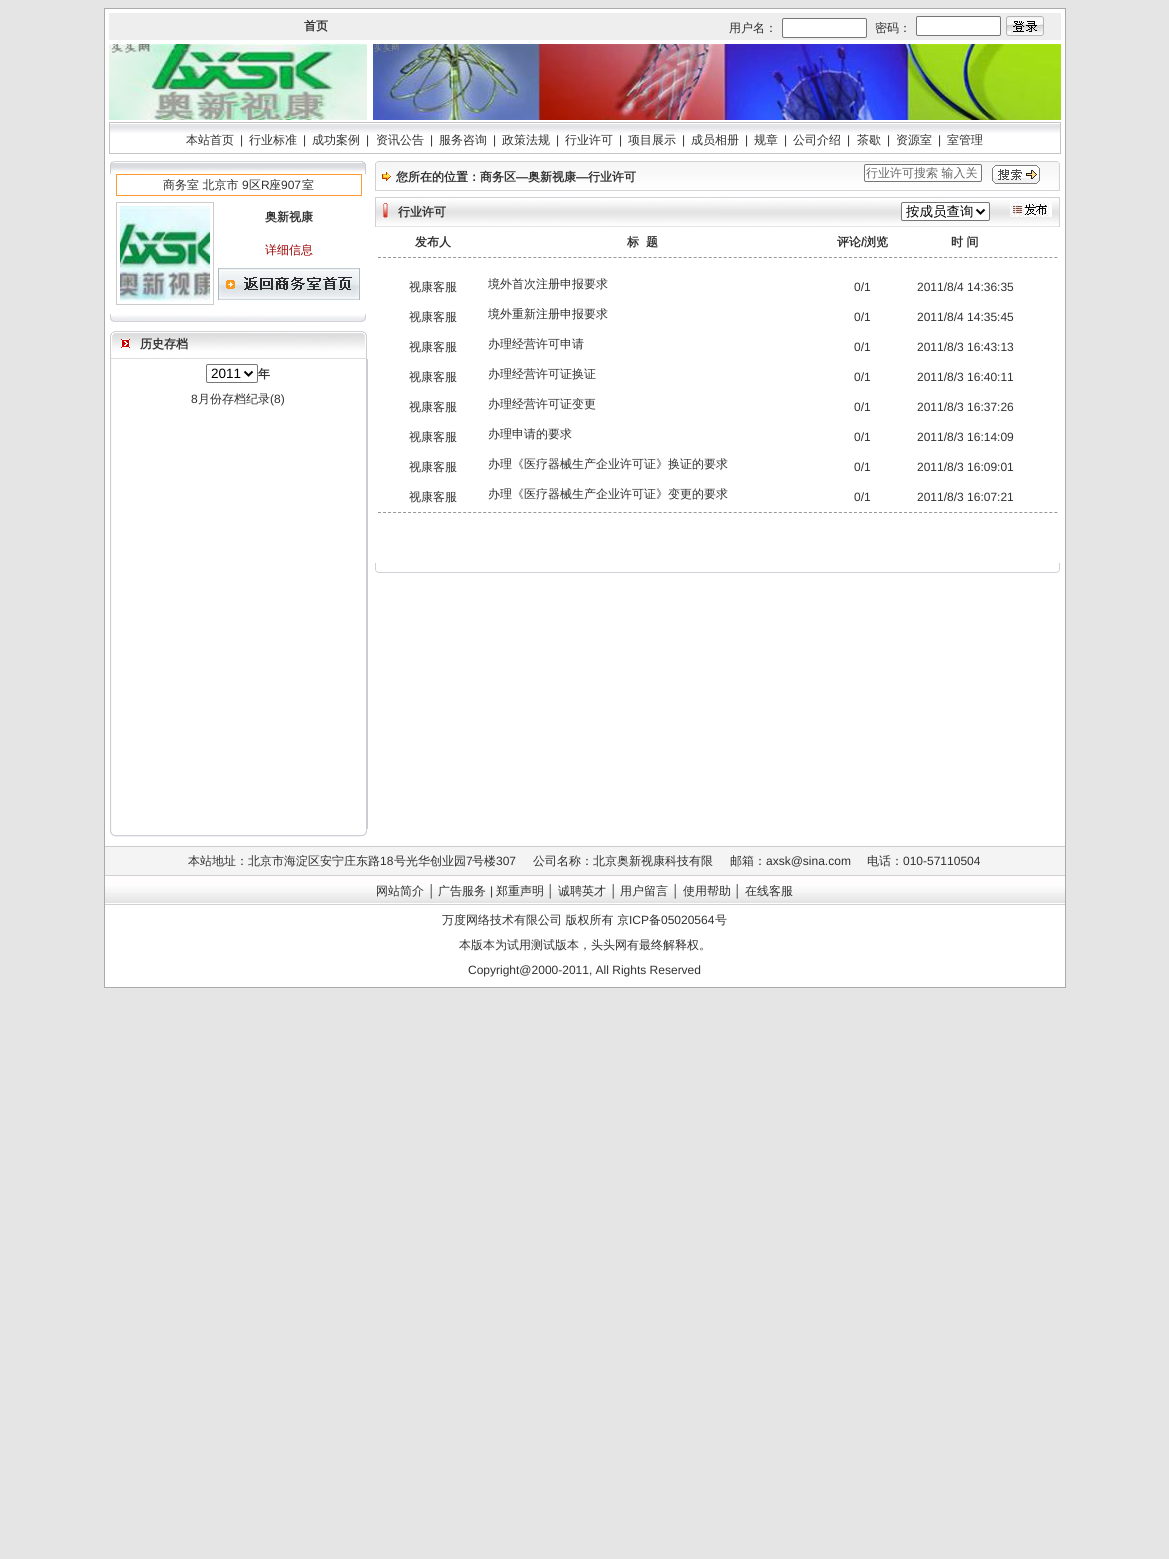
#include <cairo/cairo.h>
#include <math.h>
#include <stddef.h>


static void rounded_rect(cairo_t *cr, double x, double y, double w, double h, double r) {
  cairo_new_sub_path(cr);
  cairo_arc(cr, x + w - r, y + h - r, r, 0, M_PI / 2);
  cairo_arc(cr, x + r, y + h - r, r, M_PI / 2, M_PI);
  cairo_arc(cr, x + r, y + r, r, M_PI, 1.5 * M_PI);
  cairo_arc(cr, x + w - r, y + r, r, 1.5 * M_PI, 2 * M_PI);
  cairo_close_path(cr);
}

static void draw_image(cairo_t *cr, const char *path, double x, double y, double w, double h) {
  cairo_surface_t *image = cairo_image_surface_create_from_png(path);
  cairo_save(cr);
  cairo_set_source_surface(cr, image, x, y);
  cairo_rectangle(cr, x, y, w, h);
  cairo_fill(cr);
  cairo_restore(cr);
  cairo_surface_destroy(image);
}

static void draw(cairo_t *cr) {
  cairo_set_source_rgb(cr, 229 / 255.0, 229 / 255.0, 229 / 255.0);
  cairo_paint(cr);
  cairo_set_source_rgb(cr, 1, 1, 1);
  cairo_rectangle(cr, 104.5, 8.5, 961, 979);
  cairo_fill_preserve(cr);
  cairo_set_source_rgb(cr, 170 / 255.0, 170 / 255.0, 170 / 255.0);
  cairo_set_line_width(cr, 1);
  cairo_stroke(cr);
  cairo_set_source_rgb(cr, 239 / 255.0, 238 / 255.0, 238 / 255.0);
  cairo_rectangle(cr, 109, 13, 952, 27);
  cairo_fill(cr);
  cairo_set_source_rgb(cr, 1, 1, 1);
  rounded_rect(cr, 782.5, 18.5, 84, 19, 1.5);
  cairo_fill_preserve(cr);
  cairo_set_source_rgb(cr, 118 / 255.0, 118 / 255.0, 118 / 255.0);
  cairo_stroke(cr);
  cairo_set_source_rgb(cr, 1, 1, 1);
  rounded_rect(cr, 916.5, 16.5, 84, 19, 1.5);
  cairo_fill_preserve(cr);
  cairo_set_source_rgb(cr, 118 / 255.0, 118 / 255.0, 118 / 255.0);
  cairo_stroke(cr);
  draw_image(cr, "images/1.png", 1006, 16, 38, 20);
  draw_image(cr, "images/2.png", 109, 44, 258, 76);
  draw_image(cr, "images/3.png", 373, 44, 688, 76);
  draw_image(cr, "images/4.png", 110, 124, 950, 9);
  cairo_rectangle(cr, 109.5, 122.5, 951, 31);
  cairo_set_source_rgb(cr, 200 / 255.0, 195 / 255.0, 195 / 255.0);
  cairo_stroke(cr);
  draw_image(cr, "images/5.png", 110, 161, 256, 13);
  cairo_rectangle(cr, 116.5, 174.5, 245, 21);
  cairo_set_source_rgb(cr, 1, 153 / 255.0, 52 / 255.0);
  cairo_stroke(cr);
  cairo_rectangle(cr, 116.5, 202.5, 97, 102);
  cairo_set_source_rgb(cr, 204 / 255.0, 204 / 255.0, 204 / 255.0);
  cairo_stroke(cr);
  draw_image(cr, "images/6.png", 120, 206, 90, 95);
  draw_image(cr, "images/7.png", 218, 268, 142, 32);
  draw_image(cr, "images/8.png", 110, 314, 256, 8);
  draw_image(cr, "images/9.png", 110, 331, 257, 28);
  draw_image(cr, "images/10.png", 121, 339, 9, 9);
  draw_image(cr, "images/11.png", 110, 359, 258, 470);
  rounded_rect(cr, 206.5, 364.5, 51, 18, 1.5);
  cairo_set_source_rgb(cr, 118 / 255.0, 118 / 255.0, 118 / 255.0);
  cairo_stroke(cr);
  cairo_new_path(cr);
  cairo_move_to(cr, 244.5, 371.5);
  cairo_line_to(cr, 248.5, 375.5);
  cairo_line_to(cr, 252.5, 371.5);
  cairo_set_source_rgb(cr, 0, 0, 0);
  cairo_set_line_width(cr, 2);
  cairo_stroke(cr);
  draw_image(cr, "images/12.png", 110, 829, 257, 8);
  draw_image(cr, "images/13.png", 375, 161, 685, 30);
  draw_image(cr, "images/14.png", 375, 161, 16, 29);
  cairo_set_source_rgb(cr, 1, 1, 1);
  rounded_rect(cr, 864.5, 164.5, 117, 17, 1.5);
  cairo_fill_preserve(cr);
  cairo_set_source_rgb(cr, 118 / 255.0, 118 / 255.0, 118 / 255.0);
  cairo_set_line_width(cr, 1);
  cairo_stroke(cr);
  draw_image(cr, "images/15.png", 992, 165, 48, 19);
  draw_image(cr, "images/16.png", 1058, 161, 2, 29);
  draw_image(cr, "images/17.png", 375, 197, 685, 30);
  draw_image(cr, "images/18.png", 383, 203, 5, 15);
  cairo_set_source_rgb(cr, 1, 1, 1);
  rounded_rect(cr, 901.5, 202.5, 88, 18, 1.5);
  cairo_fill_preserve(cr);
  cairo_set_source_rgb(cr, 118 / 255.0, 118 / 255.0, 118 / 255.0);
  cairo_stroke(cr);
  cairo_new_path(cr);
  cairo_move_to(cr, 976.5, 209.5);
  cairo_line_to(cr, 980.5, 213.5);
  cairo_line_to(cr, 984.5, 209.5);
  cairo_set_source_rgb(cr, 0, 0, 0);
  cairo_set_line_width(cr, 2);
  cairo_stroke(cr);
  draw_image(cr, "images/19.png", 1010, 202, 42, 15);
  cairo_new_path(cr);
  cairo_move_to(cr, 378, 257.5);
  cairo_line_to(cr, 1058, 257.5);
  cairo_set_source_rgb(cr, 153 / 255.0, 153 / 255.0, 153 / 255.0);
  cairo_set_line_width(cr, 1);
  cairo_set_dash(cr, (double[]){3, 2.01}, 2, 0);
  cairo_stroke(cr);
  cairo_new_path(cr);
  cairo_move_to(cr, 378, 512.5);
  cairo_line_to(cr, 1058, 512.5);
  cairo_stroke(cr);
  draw_image(cr, "images/20.png", 375, 563, 685, 10);
  cairo_set_source_rgb(cr, 204 / 255.0, 204 / 255.0, 204 / 255.0);
  cairo_rectangle(cr, 105, 846, 960, 1);
  cairo_fill(cr);
  cairo_set_source_rgb(cr, 245 / 255.0, 244 / 255.0, 244 / 255.0);
  cairo_rectangle(cr, 105, 847, 960, 28);
  cairo_fill(cr);
  draw_image(cr, "images/21.png", 105, 875, 960, 30);
  cairo_select_font_face(cr, "WenQuanYi Zen Hei", CAIRO_FONT_SLANT_NORMAL, CAIRO_FONT_WEIGHT_BOLD);
  cairo_set_font_size(cr, 12);
  cairo_set_source_rgb(cr, 48 / 255.0, 48 / 255.0, 48 / 255.0);
  cairo_move_to(cr, 304, 30);
  cairo_show_text(cr, "首页");
  cairo_select_font_face(cr, "WenQuanYi Zen Hei Medium", CAIRO_FONT_SLANT_NORMAL, CAIRO_FONT_WEIGHT_NORMAL);
  cairo_move_to(cr, 729, 32);
  cairo_show_text(cr, "用户名：");
  cairo_move_to(cr, 875, 32);
  cairo_show_text(cr, "密码：");
  cairo_move_to(cr, 186, 144);
  cairo_show_text(cr, "本站首页");
  cairo_select_font_face(cr, "Liberation Sans", CAIRO_FONT_SLANT_NORMAL, CAIRO_FONT_WEIGHT_NORMAL);
  cairo_move_to(cr, 240, 144);
  cairo_show_text(cr, "|");
  cairo_select_font_face(cr, "WenQuanYi Zen Hei Medium", CAIRO_FONT_SLANT_NORMAL, CAIRO_FONT_WEIGHT_NORMAL);
  cairo_move_to(cr, 249, 144);
  cairo_show_text(cr, "行业标准");
  cairo_select_font_face(cr, "Liberation Sans", CAIRO_FONT_SLANT_NORMAL, CAIRO_FONT_WEIGHT_NORMAL);
  cairo_move_to(cr, 303, 144);
  cairo_show_text(cr, "|");
  cairo_select_font_face(cr, "WenQuanYi Zen Hei Medium", CAIRO_FONT_SLANT_NORMAL, CAIRO_FONT_WEIGHT_NORMAL);
  cairo_move_to(cr, 312, 144);
  cairo_show_text(cr, "成功案例");
  cairo_select_font_face(cr, "Liberation Sans", CAIRO_FONT_SLANT_NORMAL, CAIRO_FONT_WEIGHT_NORMAL);
  cairo_move_to(cr, 366, 144);
  cairo_show_text(cr, "|");
  cairo_select_font_face(cr, "WenQuanYi Zen Hei Medium", CAIRO_FONT_SLANT_NORMAL, CAIRO_FONT_WEIGHT_NORMAL);
  cairo_move_to(cr, 376, 144);
  cairo_show_text(cr, "资讯公告");
  cairo_select_font_face(cr, "Liberation Sans", CAIRO_FONT_SLANT_NORMAL, CAIRO_FONT_WEIGHT_NORMAL);
  cairo_move_to(cr, 430, 144);
  cairo_show_text(cr, "|");
  cairo_select_font_face(cr, "WenQuanYi Zen Hei Medium", CAIRO_FONT_SLANT_NORMAL, CAIRO_FONT_WEIGHT_NORMAL);
  cairo_move_to(cr, 439, 144);
  cairo_show_text(cr, "服务咨询");
  cairo_select_font_face(cr, "Liberation Sans", CAIRO_FONT_SLANT_NORMAL, CAIRO_FONT_WEIGHT_NORMAL);
  cairo_move_to(cr, 493, 144);
  cairo_show_text(cr, "|");
  cairo_select_font_face(cr, "WenQuanYi Zen Hei Medium", CAIRO_FONT_SLANT_NORMAL, CAIRO_FONT_WEIGHT_NORMAL);
  cairo_move_to(cr, 502, 144);
  cairo_show_text(cr, "政策法规");
  cairo_select_font_face(cr, "Liberation Sans", CAIRO_FONT_SLANT_NORMAL, CAIRO_FONT_WEIGHT_NORMAL);
  cairo_move_to(cr, 556, 144);
  cairo_show_text(cr, "|");
  cairo_select_font_face(cr, "WenQuanYi Zen Hei Medium", CAIRO_FONT_SLANT_NORMAL, CAIRO_FONT_WEIGHT_NORMAL);
  cairo_move_to(cr, 565, 144);
  cairo_show_text(cr, "行业许可");
  cairo_select_font_face(cr, "Liberation Sans", CAIRO_FONT_SLANT_NORMAL, CAIRO_FONT_WEIGHT_NORMAL);
  cairo_move_to(cr, 619, 144);
  cairo_show_text(cr, "|");
  cairo_select_font_face(cr, "WenQuanYi Zen Hei Medium", CAIRO_FONT_SLANT_NORMAL, CAIRO_FONT_WEIGHT_NORMAL);
  cairo_move_to(cr, 628, 144);
  cairo_show_text(cr, "项目展示");
  cairo_select_font_face(cr, "Liberation Sans", CAIRO_FONT_SLANT_NORMAL, CAIRO_FONT_WEIGHT_NORMAL);
  cairo_move_to(cr, 682, 144);
  cairo_show_text(cr, "|");
  cairo_select_font_face(cr, "WenQuanYi Zen Hei Medium", CAIRO_FONT_SLANT_NORMAL, CAIRO_FONT_WEIGHT_NORMAL);
  cairo_move_to(cr, 691, 144);
  cairo_show_text(cr, "成员相册");
  cairo_select_font_face(cr, "Liberation Sans", CAIRO_FONT_SLANT_NORMAL, CAIRO_FONT_WEIGHT_NORMAL);
  cairo_move_to(cr, 745, 144);
  cairo_show_text(cr, "|");
  cairo_select_font_face(cr, "WenQuanYi Zen Hei Medium", CAIRO_FONT_SLANT_NORMAL, CAIRO_FONT_WEIGHT_NORMAL);
  cairo_move_to(cr, 754, 144);
  cairo_show_text(cr, "规章");
  cairo_select_font_face(cr, "Liberation Sans", CAIRO_FONT_SLANT_NORMAL, CAIRO_FONT_WEIGHT_NORMAL);
  cairo_move_to(cr, 784, 144);
  cairo_show_text(cr, "|");
  cairo_select_font_face(cr, "WenQuanYi Zen Hei Medium", CAIRO_FONT_SLANT_NORMAL, CAIRO_FONT_WEIGHT_NORMAL);
  cairo_move_to(cr, 793, 144);
  cairo_show_text(cr, "公司介绍");
  cairo_select_font_face(cr, "Liberation Sans", CAIRO_FONT_SLANT_NORMAL, CAIRO_FONT_WEIGHT_NORMAL);
  cairo_move_to(cr, 847, 144);
  cairo_show_text(cr, "|");
  cairo_select_font_face(cr, "WenQuanYi Zen Hei Medium", CAIRO_FONT_SLANT_NORMAL, CAIRO_FONT_WEIGHT_NORMAL);
  cairo_move_to(cr, 857, 144);
  cairo_show_text(cr, "茶歇");
  cairo_select_font_face(cr, "Liberation Sans", CAIRO_FONT_SLANT_NORMAL, CAIRO_FONT_WEIGHT_NORMAL);
  cairo_move_to(cr, 887, 144);
  cairo_show_text(cr, "|");
  cairo_select_font_face(cr, "WenQuanYi Zen Hei Medium", CAIRO_FONT_SLANT_NORMAL, CAIRO_FONT_WEIGHT_NORMAL);
  cairo_move_to(cr, 896, 144);
  cairo_show_text(cr, "资源室");
  cairo_select_font_face(cr, "Liberation Sans", CAIRO_FONT_SLANT_NORMAL, CAIRO_FONT_WEIGHT_NORMAL);
  cairo_move_to(cr, 938, 144);
  cairo_show_text(cr, "|");
  cairo_select_font_face(cr, "WenQuanYi Zen Hei Medium", CAIRO_FONT_SLANT_NORMAL, CAIRO_FONT_WEIGHT_NORMAL);
  cairo_move_to(cr, 947, 144);
  cairo_show_text(cr, "室管理");
  cairo_move_to(cr, 163, 189);
  cairo_show_text(cr, "商务室 北京市");
  cairo_select_font_face(cr, "Liberation Sans", CAIRO_FONT_SLANT_NORMAL, CAIRO_FONT_WEIGHT_NORMAL);
  cairo_move_to(cr, 242, 189);
  cairo_show_text(cr, "9");
  cairo_select_font_face(cr, "WenQuanYi Zen Hei Medium", CAIRO_FONT_SLANT_NORMAL, CAIRO_FONT_WEIGHT_NORMAL);
  cairo_move_to(cr, 249, 189);
  cairo_show_text(cr, "区");
  cairo_select_font_face(cr, "Liberation Sans", CAIRO_FONT_SLANT_NORMAL, CAIRO_FONT_WEIGHT_NORMAL);
  cairo_move_to(cr, 261, 189);
  cairo_show_text(cr, "R");
  cairo_select_font_face(cr, "WenQuanYi Zen Hei Medium", CAIRO_FONT_SLANT_NORMAL, CAIRO_FONT_WEIGHT_NORMAL);
  cairo_move_to(cr, 269, 189);
  cairo_show_text(cr, "座");
  cairo_select_font_face(cr, "Liberation Sans", CAIRO_FONT_SLANT_NORMAL, CAIRO_FONT_WEIGHT_NORMAL);
  cairo_move_to(cr, 281, 189);
  cairo_show_text(cr, "907");
  cairo_select_font_face(cr, "WenQuanYi Zen Hei Medium", CAIRO_FONT_SLANT_NORMAL, CAIRO_FONT_WEIGHT_NORMAL);
  cairo_move_to(cr, 302, 189);
  cairo_show_text(cr, "室");
  cairo_select_font_face(cr, "WenQuanYi Zen Hei", CAIRO_FONT_SLANT_NORMAL, CAIRO_FONT_WEIGHT_BOLD);
  cairo_move_to(cr, 265, 221);
  cairo_show_text(cr, "奥新视康");
  cairo_select_font_face(cr, "WenQuanYi Zen Hei Medium", CAIRO_FONT_SLANT_NORMAL, CAIRO_FONT_WEIGHT_NORMAL);
  cairo_set_source_rgb(cr, 153 / 255.0, 0, 0);
  cairo_move_to(cr, 265, 254);
  cairo_show_text(cr, "详细信息");
  cairo_select_font_face(cr, "WenQuanYi Zen Hei", CAIRO_FONT_SLANT_NORMAL, CAIRO_FONT_WEIGHT_BOLD);
  cairo_set_source_rgb(cr, 48 / 255.0, 48 / 255.0, 48 / 255.0);
  cairo_move_to(cr, 140, 348);
  cairo_show_text(cr, "历史存档");
  cairo_select_font_face(cr, "Liberation Sans", CAIRO_FONT_SLANT_NORMAL, CAIRO_FONT_WEIGHT_NORMAL);
  cairo_set_font_size(cr, 13.5);
  cairo_set_source_rgb(cr, 0, 0, 0);
  cairo_move_to(cr, 211, 378);
  cairo_show_text(cr, "2011");
  cairo_select_font_face(cr, "WenQuanYi Zen Hei", CAIRO_FONT_SLANT_NORMAL, CAIRO_FONT_WEIGHT_BOLD);
  cairo_set_font_size(cr, 12);
  cairo_set_source_rgb(cr, 48 / 255.0, 48 / 255.0, 48 / 255.0);
  cairo_move_to(cr, 258, 378);
  cairo_show_text(cr, "年");
  cairo_select_font_face(cr, "Liberation Sans", CAIRO_FONT_SLANT_NORMAL, CAIRO_FONT_WEIGHT_NORMAL);
  cairo_move_to(cr, 191, 403);
  cairo_show_text(cr, "8");
  cairo_select_font_face(cr, "WenQuanYi Zen Hei Medium", CAIRO_FONT_SLANT_NORMAL, CAIRO_FONT_WEIGHT_NORMAL);
  cairo_move_to(cr, 198, 403);
  cairo_show_text(cr, "月份存档纪录");
  cairo_select_font_face(cr, "Liberation Sans", CAIRO_FONT_SLANT_NORMAL, CAIRO_FONT_WEIGHT_NORMAL);
  cairo_move_to(cr, 270, 403);
  cairo_show_text(cr, "(8)");
  cairo_select_font_face(cr, "WenQuanYi Zen Hei", CAIRO_FONT_SLANT_NORMAL, CAIRO_FONT_WEIGHT_BOLD);
  cairo_move_to(cr, 396, 181);
  cairo_show_text(cr, "您所在的位置：商务区");
  cairo_select_font_face(cr, "Liberation Sans", CAIRO_FONT_SLANT_NORMAL, CAIRO_FONT_WEIGHT_BOLD);
  cairo_move_to(cr, 516, 181);
  cairo_show_text(cr, "—");
  cairo_select_font_face(cr, "WenQuanYi Zen Hei", CAIRO_FONT_SLANT_NORMAL, CAIRO_FONT_WEIGHT_BOLD);
  cairo_move_to(cr, 528, 181);
  cairo_show_text(cr, "奥新视康");
  cairo_select_font_face(cr, "Liberation Sans", CAIRO_FONT_SLANT_NORMAL, CAIRO_FONT_WEIGHT_BOLD);
  cairo_move_to(cr, 576, 181);
  cairo_show_text(cr, "—");
  cairo_select_font_face(cr, "WenQuanYi Zen Hei", CAIRO_FONT_SLANT_NORMAL, CAIRO_FONT_WEIGHT_BOLD);
  cairo_move_to(cr, 588, 181);
  cairo_show_text(cr, "行业许可");
  cairo_select_font_face(cr, "WenQuanYi Zen Hei Medium", CAIRO_FONT_SLANT_NORMAL, CAIRO_FONT_WEIGHT_NORMAL);
  cairo_set_source_rgb(cr, 102 / 255.0, 102 / 255.0, 102 / 255.0);
  cairo_move_to(cr, 866, 177);
  cairo_show_text(cr, "行业许可搜索 输入关");
  cairo_select_font_face(cr, "WenQuanYi Zen Hei", CAIRO_FONT_SLANT_NORMAL, CAIRO_FONT_WEIGHT_BOLD);
  cairo_set_source_rgb(cr, 48 / 255.0, 48 / 255.0, 48 / 255.0);
  cairo_move_to(cr, 398, 216);
  cairo_show_text(cr, "行业许可");
  cairo_select_font_face(cr, "WenQuanYi Zen Hei Medium", CAIRO_FONT_SLANT_NORMAL, CAIRO_FONT_WEIGHT_NORMAL);
  cairo_set_font_size(cr, 13.5);
  cairo_set_source_rgb(cr, 0, 0, 0);
  cairo_move_to(cr, 906, 216);
  cairo_show_text(cr, "按成员查询");
  cairo_select_font_face(cr, "WenQuanYi Zen Hei", CAIRO_FONT_SLANT_NORMAL, CAIRO_FONT_WEIGHT_BOLD);
  cairo_set_font_size(cr, 12);
  cairo_set_source_rgb(cr, 48 / 255.0, 48 / 255.0, 48 / 255.0);
  cairo_move_to(cr, 415, 246);
  cairo_show_text(cr, "发布人");
  cairo_move_to(cr, 627, 246);
  cairo_show_text(cr, "标");
  cairo_move_to(cr, 646, 246);
  cairo_show_text(cr, "题");
  cairo_move_to(cr, 837, 246);
  cairo_show_text(cr, "评论");
  cairo_select_font_face(cr, "Liberation Sans", CAIRO_FONT_SLANT_NORMAL, CAIRO_FONT_WEIGHT_BOLD);
  cairo_move_to(cr, 861, 246);
  cairo_show_text(cr, "/");
  cairo_select_font_face(cr, "WenQuanYi Zen Hei", CAIRO_FONT_SLANT_NORMAL, CAIRO_FONT_WEIGHT_BOLD);
  cairo_move_to(cr, 864, 246);
  cairo_show_text(cr, "浏览");
  cairo_move_to(cr, 951, 246);
  cairo_show_text(cr, "时 间");
  cairo_select_font_face(cr, "WenQuanYi Zen Hei Medium", CAIRO_FONT_SLANT_NORMAL, CAIRO_FONT_WEIGHT_NORMAL);
  cairo_move_to(cr, 409, 291);
  cairo_show_text(cr, "视康客服");
  cairo_move_to(cr, 488, 288);
  cairo_show_text(cr, "境外首次注册申报要求");
  cairo_select_font_face(cr, "Liberation Sans", CAIRO_FONT_SLANT_NORMAL, CAIRO_FONT_WEIGHT_NORMAL);
  cairo_move_to(cr, 854, 291);
  cairo_show_text(cr, "0/1");
  cairo_move_to(cr, 917, 291);
  cairo_show_text(cr, "2011/8/4 14:36:35");
  cairo_select_font_face(cr, "WenQuanYi Zen Hei Medium", CAIRO_FONT_SLANT_NORMAL, CAIRO_FONT_WEIGHT_NORMAL);
  cairo_move_to(cr, 409, 321);
  cairo_show_text(cr, "视康客服");
  cairo_move_to(cr, 488, 318);
  cairo_show_text(cr, "境外重新注册申报要求");
  cairo_select_font_face(cr, "Liberation Sans", CAIRO_FONT_SLANT_NORMAL, CAIRO_FONT_WEIGHT_NORMAL);
  cairo_move_to(cr, 854, 321);
  cairo_show_text(cr, "0/1");
  cairo_move_to(cr, 917, 321);
  cairo_show_text(cr, "2011/8/4 14:35:45");
  cairo_select_font_face(cr, "WenQuanYi Zen Hei Medium", CAIRO_FONT_SLANT_NORMAL, CAIRO_FONT_WEIGHT_NORMAL);
  cairo_move_to(cr, 409, 351);
  cairo_show_text(cr, "视康客服");
  cairo_move_to(cr, 488, 348);
  cairo_show_text(cr, "办理经营许可申请");
  cairo_select_font_face(cr, "Liberation Sans", CAIRO_FONT_SLANT_NORMAL, CAIRO_FONT_WEIGHT_NORMAL);
  cairo_move_to(cr, 854, 351);
  cairo_show_text(cr, "0/1");
  cairo_move_to(cr, 917, 351);
  cairo_show_text(cr, "2011/8/3 16:43:13");
  cairo_select_font_face(cr, "WenQuanYi Zen Hei Medium", CAIRO_FONT_SLANT_NORMAL, CAIRO_FONT_WEIGHT_NORMAL);
  cairo_move_to(cr, 409, 381);
  cairo_show_text(cr, "视康客服");
  cairo_move_to(cr, 488, 378);
  cairo_show_text(cr, "办理经营许可证换证");
  cairo_select_font_face(cr, "Liberation Sans", CAIRO_FONT_SLANT_NORMAL, CAIRO_FONT_WEIGHT_NORMAL);
  cairo_move_to(cr, 854, 381);
  cairo_show_text(cr, "0/1");
  cairo_move_to(cr, 917, 381);
  cairo_show_text(cr, "2011/8/3 16:40:11");
  cairo_select_font_face(cr, "WenQuanYi Zen Hei Medium", CAIRO_FONT_SLANT_NORMAL, CAIRO_FONT_WEIGHT_NORMAL);
  cairo_move_to(cr, 409, 411);
  cairo_show_text(cr, "视康客服");
  cairo_move_to(cr, 488, 408);
  cairo_show_text(cr, "办理经营许可证变更");
  cairo_select_font_face(cr, "Liberation Sans", CAIRO_FONT_SLANT_NORMAL, CAIRO_FONT_WEIGHT_NORMAL);
  cairo_move_to(cr, 854, 411);
  cairo_show_text(cr, "0/1");
  cairo_move_to(cr, 917, 411);
  cairo_show_text(cr, "2011/8/3 16:37:26");
  cairo_select_font_face(cr, "WenQuanYi Zen Hei Medium", CAIRO_FONT_SLANT_NORMAL, CAIRO_FONT_WEIGHT_NORMAL);
  cairo_move_to(cr, 409, 441);
  cairo_show_text(cr, "视康客服");
  cairo_move_to(cr, 488, 438);
  cairo_show_text(cr, "办理申请的要求");
  cairo_select_font_face(cr, "Liberation Sans", CAIRO_FONT_SLANT_NORMAL, CAIRO_FONT_WEIGHT_NORMAL);
  cairo_move_to(cr, 854, 441);
  cairo_show_text(cr, "0/1");
  cairo_move_to(cr, 917, 441);
  cairo_show_text(cr, "2011/8/3 16:14:09");
  cairo_select_font_face(cr, "WenQuanYi Zen Hei Medium", CAIRO_FONT_SLANT_NORMAL, CAIRO_FONT_WEIGHT_NORMAL);
  cairo_move_to(cr, 409, 471);
  cairo_show_text(cr, "视康客服");
  cairo_move_to(cr, 488, 468);
  cairo_show_text(cr, "办理《医疗器械生产企业许可证》换证的要求");
  cairo_select_font_face(cr, "Liberation Sans", CAIRO_FONT_SLANT_NORMAL, CAIRO_FONT_WEIGHT_NORMAL);
  cairo_move_to(cr, 854, 471);
  cairo_show_text(cr, "0/1");
  cairo_move_to(cr, 917, 471);
  cairo_show_text(cr, "2011/8/3 16:09:01");
  cairo_select_font_face(cr, "WenQuanYi Zen Hei Medium", CAIRO_FONT_SLANT_NORMAL, CAIRO_FONT_WEIGHT_NORMAL);
  cairo_move_to(cr, 409, 501);
  cairo_show_text(cr, "视康客服");
  cairo_move_to(cr, 488, 498);
  cairo_show_text(cr, "办理《医疗器械生产企业许可证》变更的要求");
  cairo_select_font_face(cr, "Liberation Sans", CAIRO_FONT_SLANT_NORMAL, CAIRO_FONT_WEIGHT_NORMAL);
  cairo_move_to(cr, 854, 501);
  cairo_show_text(cr, "0/1");
  cairo_move_to(cr, 917, 501);
  cairo_show_text(cr, "2011/8/3 16:07:21");
  cairo_select_font_face(cr, "WenQuanYi Zen Hei Medium", CAIRO_FONT_SLANT_NORMAL, CAIRO_FONT_WEIGHT_NORMAL);
  cairo_move_to(cr, 188, 865);
  cairo_show_text(cr, "本站地址：北京市海淀区安宁庄东路");
  cairo_select_font_face(cr, "Liberation Sans", CAIRO_FONT_SLANT_NORMAL, CAIRO_FONT_WEIGHT_NORMAL);
  cairo_move_to(cr, 380, 865);
  cairo_show_text(cr, "18");
  cairo_select_font_face(cr, "WenQuanYi Zen Hei Medium", CAIRO_FONT_SLANT_NORMAL, CAIRO_FONT_WEIGHT_NORMAL);
  cairo_move_to(cr, 394, 865);
  cairo_show_text(cr, "号光华创业园");
  cairo_select_font_face(cr, "Liberation Sans", CAIRO_FONT_SLANT_NORMAL, CAIRO_FONT_WEIGHT_NORMAL);
  cairo_move_to(cr, 466, 865);
  cairo_show_text(cr, "7");
  cairo_select_font_face(cr, "WenQuanYi Zen Hei Medium", CAIRO_FONT_SLANT_NORMAL, CAIRO_FONT_WEIGHT_NORMAL);
  cairo_move_to(cr, 472, 865);
  cairo_show_text(cr, "号楼");
  cairo_select_font_face(cr, "Liberation Sans", CAIRO_FONT_SLANT_NORMAL, CAIRO_FONT_WEIGHT_NORMAL);
  cairo_move_to(cr, 496, 865);
  cairo_show_text(cr, "307");
  cairo_select_font_face(cr, "WenQuanYi Zen Hei Medium", CAIRO_FONT_SLANT_NORMAL, CAIRO_FONT_WEIGHT_NORMAL);
  cairo_move_to(cr, 533, 865);
  cairo_show_text(cr, "公司名称：北京奥新视康科技有限");
  cairo_move_to(cr, 730, 865);
  cairo_show_text(cr, "邮箱：");
  cairo_select_font_face(cr, "Liberation Sans", CAIRO_FONT_SLANT_NORMAL, CAIRO_FONT_WEIGHT_NORMAL);
  cairo_move_to(cr, 766, 865);
  cairo_show_text(cr, "axsk@sina.com");
  cairo_select_font_face(cr, "WenQuanYi Zen Hei Medium", CAIRO_FONT_SLANT_NORMAL, CAIRO_FONT_WEIGHT_NORMAL);
  cairo_move_to(cr, 867, 865);
  cairo_show_text(cr, "电话：");
  cairo_select_font_face(cr, "Liberation Sans", CAIRO_FONT_SLANT_NORMAL, CAIRO_FONT_WEIGHT_NORMAL);
  cairo_move_to(cr, 903, 865);
  cairo_show_text(cr, "010-57110504");
  cairo_select_font_face(cr, "WenQuanYi Zen Hei Medium", CAIRO_FONT_SLANT_NORMAL, CAIRO_FONT_WEIGHT_NORMAL);
  cairo_move_to(cr, 376, 895);
  cairo_show_text(cr, "网站简介");
  cairo_select_font_face(cr, "Liberation Sans", CAIRO_FONT_SLANT_NORMAL, CAIRO_FONT_WEIGHT_NORMAL);
  cairo_move_to(cr, 428, 895);
  cairo_show_text(cr, "│");
  cairo_select_font_face(cr, "WenQuanYi Zen Hei Medium", CAIRO_FONT_SLANT_NORMAL, CAIRO_FONT_WEIGHT_NORMAL);
  cairo_move_to(cr, 438, 895);
  cairo_show_text(cr, "广告服务");
  cairo_select_font_face(cr, "Liberation Sans", CAIRO_FONT_SLANT_NORMAL, CAIRO_FONT_WEIGHT_NORMAL);
  cairo_move_to(cr, 490, 895);
  cairo_show_text(cr, "|");
  cairo_select_font_face(cr, "WenQuanYi Zen Hei Medium", CAIRO_FONT_SLANT_NORMAL, CAIRO_FONT_WEIGHT_NORMAL);
  cairo_move_to(cr, 496, 895);
  cairo_show_text(cr, "郑重声明");
  cairo_select_font_face(cr, "Liberation Sans", CAIRO_FONT_SLANT_NORMAL, CAIRO_FONT_WEIGHT_NORMAL);
  cairo_move_to(cr, 547, 895);
  cairo_show_text(cr, "│");
  cairo_select_font_face(cr, "WenQuanYi Zen Hei Medium", CAIRO_FONT_SLANT_NORMAL, CAIRO_FONT_WEIGHT_NORMAL);
  cairo_move_to(cr, 558, 895);
  cairo_show_text(cr, "诚聘英才");
  cairo_select_font_face(cr, "Liberation Sans", CAIRO_FONT_SLANT_NORMAL, CAIRO_FONT_WEIGHT_NORMAL);
  cairo_move_to(cr, 610, 895);
  cairo_show_text(cr, "│");
  cairo_select_font_face(cr, "WenQuanYi Zen Hei Medium", CAIRO_FONT_SLANT_NORMAL, CAIRO_FONT_WEIGHT_NORMAL);
  cairo_move_to(cr, 620, 895);
  cairo_show_text(cr, "用户留言");
  cairo_select_font_face(cr, "Liberation Sans", CAIRO_FONT_SLANT_NORMAL, CAIRO_FONT_WEIGHT_NORMAL);
  cairo_move_to(cr, 672, 895);
  cairo_show_text(cr, "│");
  cairo_select_font_face(cr, "WenQuanYi Zen Hei Medium", CAIRO_FONT_SLANT_NORMAL, CAIRO_FONT_WEIGHT_NORMAL);
  cairo_move_to(cr, 683, 895);
  cairo_show_text(cr, "使用帮助");
  cairo_select_font_face(cr, "Liberation Sans", CAIRO_FONT_SLANT_NORMAL, CAIRO_FONT_WEIGHT_NORMAL);
  cairo_move_to(cr, 734, 895);
  cairo_show_text(cr, "│");
  cairo_select_font_face(cr, "WenQuanYi Zen Hei Medium", CAIRO_FONT_SLANT_NORMAL, CAIRO_FONT_WEIGHT_NORMAL);
  cairo_move_to(cr, 745, 895);
  cairo_show_text(cr, "在线客服");
  cairo_move_to(cr, 442, 924);
  cairo_show_text(cr, "万度网络技术有限公司 版权所有 京");
  cairo_select_font_face(cr, "Liberation Sans", CAIRO_FONT_SLANT_NORMAL, CAIRO_FONT_WEIGHT_NORMAL);
  cairo_move_to(cr, 629, 924);
  cairo_show_text(cr, "ICP");
  cairo_select_font_face(cr, "WenQuanYi Zen Hei Medium", CAIRO_FONT_SLANT_NORMAL, CAIRO_FONT_WEIGHT_NORMAL);
  cairo_move_to(cr, 649, 924);
  cairo_show_text(cr, "备");
  cairo_select_font_face(cr, "Liberation Sans", CAIRO_FONT_SLANT_NORMAL, CAIRO_FONT_WEIGHT_NORMAL);
  cairo_move_to(cr, 661, 924);
  cairo_show_text(cr, "05020564");
  cairo_select_font_face(cr, "WenQuanYi Zen Hei Medium", CAIRO_FONT_SLANT_NORMAL, CAIRO_FONT_WEIGHT_NORMAL);
  cairo_move_to(cr, 715, 924);
  cairo_show_text(cr, "号");
  cairo_move_to(cr, 459, 949);
  cairo_show_text(cr, "本版本为试用测试版本，头头网有最终解释权。");
  cairo_select_font_face(cr, "Liberation Sans", CAIRO_FONT_SLANT_NORMAL, CAIRO_FONT_WEIGHT_NORMAL);
  cairo_move_to(cr, 468, 974);
  cairo_show_text(cr, "Copyright@2000-2011, All Rights Reserved");
}

int main(void) {
  cairo_surface_t *surface = cairo_image_surface_create(CAIRO_FORMAT_RGB24, 1169, 1559);
  cairo_t *cr = cairo_create(surface);
  cairo_font_options_t *options = cairo_font_options_create();
  cairo_font_options_set_hint_metrics(options, CAIRO_HINT_METRICS_OFF);
  cairo_font_options_set_hint_style(options, CAIRO_HINT_STYLE_NONE);
  cairo_set_font_options(cr, options);
  cairo_set_miter_limit(cr, 4);
  draw(cr);
  cairo_surface_write_to_png(surface, "out.png");
  cairo_font_options_destroy(options);
  cairo_destroy(cr);
  cairo_surface_destroy(surface);
  return 0;
}
